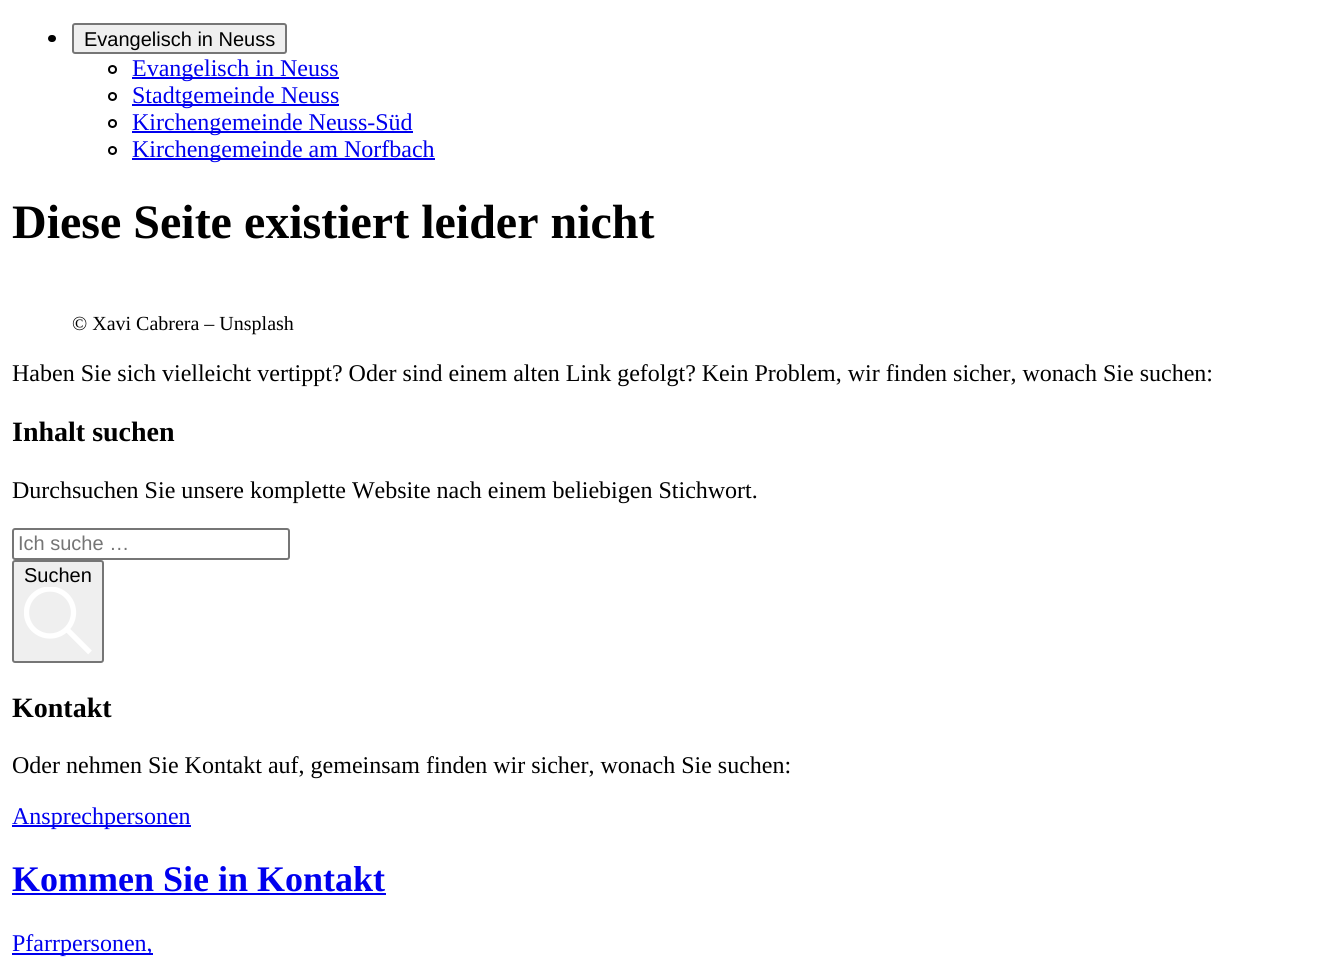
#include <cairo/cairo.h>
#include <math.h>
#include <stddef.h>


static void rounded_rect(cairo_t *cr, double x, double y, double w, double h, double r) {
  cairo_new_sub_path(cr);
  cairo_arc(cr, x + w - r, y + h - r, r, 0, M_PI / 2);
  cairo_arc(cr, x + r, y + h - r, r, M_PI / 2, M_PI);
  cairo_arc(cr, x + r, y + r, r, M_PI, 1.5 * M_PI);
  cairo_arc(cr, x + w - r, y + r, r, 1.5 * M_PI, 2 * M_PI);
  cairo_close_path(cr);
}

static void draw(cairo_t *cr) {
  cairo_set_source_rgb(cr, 1, 1, 1);
  cairo_paint(cr);
  cairo_set_source_rgb(cr, 0, 0, 0);
  rounded_rect(cr, 48, 35, 8, 7, 3.5);
  cairo_fill(cr);
  cairo_set_source_rgb(cr, 239 / 255.0, 239 / 255.0, 239 / 255.0);
  rounded_rect(cr, 73, 24, 213, 29, 2);
  cairo_fill_preserve(cr);
  cairo_set_source_rgb(cr, 118 / 255.0, 118 / 255.0, 118 / 255.0);
  cairo_stroke(cr);
  cairo_arc(cr, 112.5, 69.5, 3.5, 0, 2 * M_PI);
  cairo_set_source_rgb(cr, 0, 0, 0);
  cairo_stroke(cr);
  cairo_set_source_rgb(cr, 0, 0, 238 / 255.0);
  cairo_rectangle(cr, 132, 77, 207, 2);
  cairo_fill(cr);
  cairo_arc(cr, 112.5, 96.5, 3.5, 0, 2 * M_PI);
  cairo_set_source_rgb(cr, 0, 0, 0);
  cairo_stroke(cr);
  cairo_set_source_rgb(cr, 0, 0, 238 / 255.0);
  cairo_rectangle(cr, 132, 104, 207, 2);
  cairo_fill(cr);
  cairo_arc(cr, 112.5, 123.5, 3.5, 0, 2 * M_PI);
  cairo_set_source_rgb(cr, 0, 0, 0);
  cairo_stroke(cr);
  cairo_set_source_rgb(cr, 0, 0, 238 / 255.0);
  cairo_rectangle(cr, 132, 131, 281, 2);
  cairo_fill(cr);
  cairo_arc(cr, 112.5, 150.5, 3.5, 0, 2 * M_PI);
  cairo_set_source_rgb(cr, 0, 0, 0);
  cairo_stroke(cr);
  cairo_set_source_rgb(cr, 0, 0, 238 / 255.0);
  cairo_rectangle(cr, 132, 158, 303, 2);
  cairo_fill(cr);
  rounded_rect(cr, 13, 529, 276, 30, 2);
  cairo_set_source_rgb(cr, 118 / 255.0, 118 / 255.0, 118 / 255.0);
  cairo_stroke(cr);
  cairo_set_source_rgb(cr, 239 / 255.0, 239 / 255.0, 239 / 255.0);
  rounded_rect(cr, 13, 561, 90, 101, 2);
  cairo_fill_preserve(cr);
  cairo_set_source_rgb(cr, 118 / 255.0, 118 / 255.0, 118 / 255.0);
  cairo_stroke(cr);
  cairo_save(cr);
  cairo_rectangle(cr, 24, 587, 68, 67);
  cairo_clip(cr);
  cairo_arc(cr, 50, 612.5, 23.5, 0, 2 * M_PI);
  cairo_set_source_rgb(cr, 1, 1, 1);
  cairo_set_line_width(cr, 5.3);
  cairo_stroke(cr);
  cairo_restore(cr);
  cairo_new_path(cr);
  cairo_move_to(cr, 65.5, 628);
  cairo_line_to(cr, 90, 652.5);
  cairo_set_source_rgb(cr, 1, 1, 1);
  cairo_set_line_width(cr, 5.3);
  cairo_stroke(cr);
  cairo_set_source_rgb(cr, 0, 0, 238 / 255.0);
  cairo_rectangle(cr, 12, 825, 179, 2);
  cairo_fill(cr);
  cairo_rectangle(cr, 12, 893, 374, 2);
  cairo_fill(cr);
  cairo_rectangle(cr, 12, 953, 141, 2);
  cairo_fill(cr);
  cairo_select_font_face(cr, "Liberation Sans", CAIRO_FONT_SLANT_NORMAL, CAIRO_FONT_WEIGHT_NORMAL);
  cairo_set_font_size(cr, 20);
  cairo_set_source_rgb(cr, 0, 0, 0);
  cairo_move_to(cr, 84, 46);
  cairo_show_text(cr, "Evangelisch in Neuss");
  cairo_select_font_face(cr, "Liberation Serif", CAIRO_FONT_SLANT_NORMAL, CAIRO_FONT_WEIGHT_NORMAL);
  cairo_set_font_size(cr, 24);
  cairo_set_source_rgb(cr, 0, 0, 238 / 255.0);
  cairo_move_to(cr, 132, 76);
  cairo_show_text(cr, "Evangelisch in Neuss");
  cairo_move_to(cr, 132, 103);
  cairo_show_text(cr, "Stadtgemeinde Neuss");
  cairo_move_to(cr, 132, 130);
  cairo_show_text(cr, "Kirchengemeinde Neuss-Süd");
  cairo_move_to(cr, 132, 157);
  cairo_show_text(cr, "Kirchengemeinde am Norfbach");
  cairo_select_font_face(cr, "Liberation Serif", CAIRO_FONT_SLANT_NORMAL, CAIRO_FONT_WEIGHT_BOLD);
  cairo_set_font_size(cr, 48);
  cairo_set_source_rgb(cr, 0, 0, 0);
  cairo_move_to(cr, 12, 238);
  cairo_show_text(cr, "Diese Seite existiert leider nicht");
  cairo_select_font_face(cr, "Liberation Serif", CAIRO_FONT_SLANT_NORMAL, CAIRO_FONT_WEIGHT_NORMAL);
  cairo_set_font_size(cr, 20);
  cairo_move_to(cr, 72, 330);
  cairo_show_text(cr, "© Xavi Cabrera – Unsplash");
  cairo_set_font_size(cr, 24);
  cairo_move_to(cr, 12, 381);
  cairo_show_text(cr, "Haben Sie sich vielleicht vertippt? Oder sind einem alten Link gefolgt? Kein Problem, wir finden sicher, wonach Sie suchen:");
  cairo_select_font_face(cr, "Liberation Serif", CAIRO_FONT_SLANT_NORMAL, CAIRO_FONT_WEIGHT_BOLD);
  cairo_set_font_size(cr, 28);
  cairo_move_to(cr, 12, 441);
  cairo_show_text(cr, "Inhalt suchen");
  cairo_select_font_face(cr, "Liberation Serif", CAIRO_FONT_SLANT_NORMAL, CAIRO_FONT_WEIGHT_NORMAL);
  cairo_set_font_size(cr, 24);
  cairo_move_to(cr, 12, 498);
  cairo_show_text(cr, "Durchsuchen Sie unsere komplette Website nach einem beliebigen Stichwort.");
  cairo_select_font_face(cr, "Liberation Sans", CAIRO_FONT_SLANT_NORMAL, CAIRO_FONT_WEIGHT_NORMAL);
  cairo_set_font_size(cr, 20);
  cairo_set_source_rgb(cr, 117 / 255.0, 117 / 255.0, 117 / 255.0);
  cairo_move_to(cr, 18, 550);
  cairo_show_text(cr, "Ich suche …");
  cairo_set_source_rgb(cr, 0, 0, 0);
  cairo_move_to(cr, 24, 582);
  cairo_show_text(cr, "Suchen");
  cairo_select_font_face(cr, "Liberation Serif", CAIRO_FONT_SLANT_NORMAL, CAIRO_FONT_WEIGHT_BOLD);
  cairo_set_font_size(cr, 28);
  cairo_move_to(cr, 12, 717);
  cairo_show_text(cr, "Kontakt");
  cairo_select_font_face(cr, "Liberation Serif", CAIRO_FONT_SLANT_NORMAL, CAIRO_FONT_WEIGHT_NORMAL);
  cairo_set_font_size(cr, 24);
  cairo_move_to(cr, 12, 773);
  cairo_show_text(cr, "Oder nehmen Sie Kontakt auf, gemeinsam finden wir sicher, wonach Sie suchen:");
  cairo_set_source_rgb(cr, 0, 0, 238 / 255.0);
  cairo_move_to(cr, 12, 824);
  cairo_show_text(cr, "Ansprechpersonen");
  cairo_select_font_face(cr, "Liberation Serif", CAIRO_FONT_SLANT_NORMAL, CAIRO_FONT_WEIGHT_BOLD);
  cairo_set_font_size(cr, 36);
  cairo_move_to(cr, 12, 891);
  cairo_show_text(cr, "Kommen Sie in Kontakt");
  cairo_select_font_face(cr, "Liberation Serif", CAIRO_FONT_SLANT_NORMAL, CAIRO_FONT_WEIGHT_NORMAL);
  cairo_set_font_size(cr, 24);
  cairo_move_to(cr, 12, 951);
  cairo_show_text(cr, "Pfarrpersonen,");
}

int main(void) {
  cairo_surface_t *surface = cairo_image_surface_create(CAIRO_FORMAT_RGB24, 1344, 963);
  cairo_t *cr = cairo_create(surface);
  cairo_font_options_t *options = cairo_font_options_create();
  cairo_font_options_set_hint_metrics(options, CAIRO_HINT_METRICS_OFF);
  cairo_font_options_set_hint_style(options, CAIRO_HINT_STYLE_NONE);
  cairo_set_font_options(cr, options);
  cairo_set_miter_limit(cr, 4);
  draw(cr);
  cairo_surface_write_to_png(surface, "out.png");
  cairo_font_options_destroy(options);
  cairo_destroy(cr);
  cairo_surface_destroy(surface);
  return 0;
}
